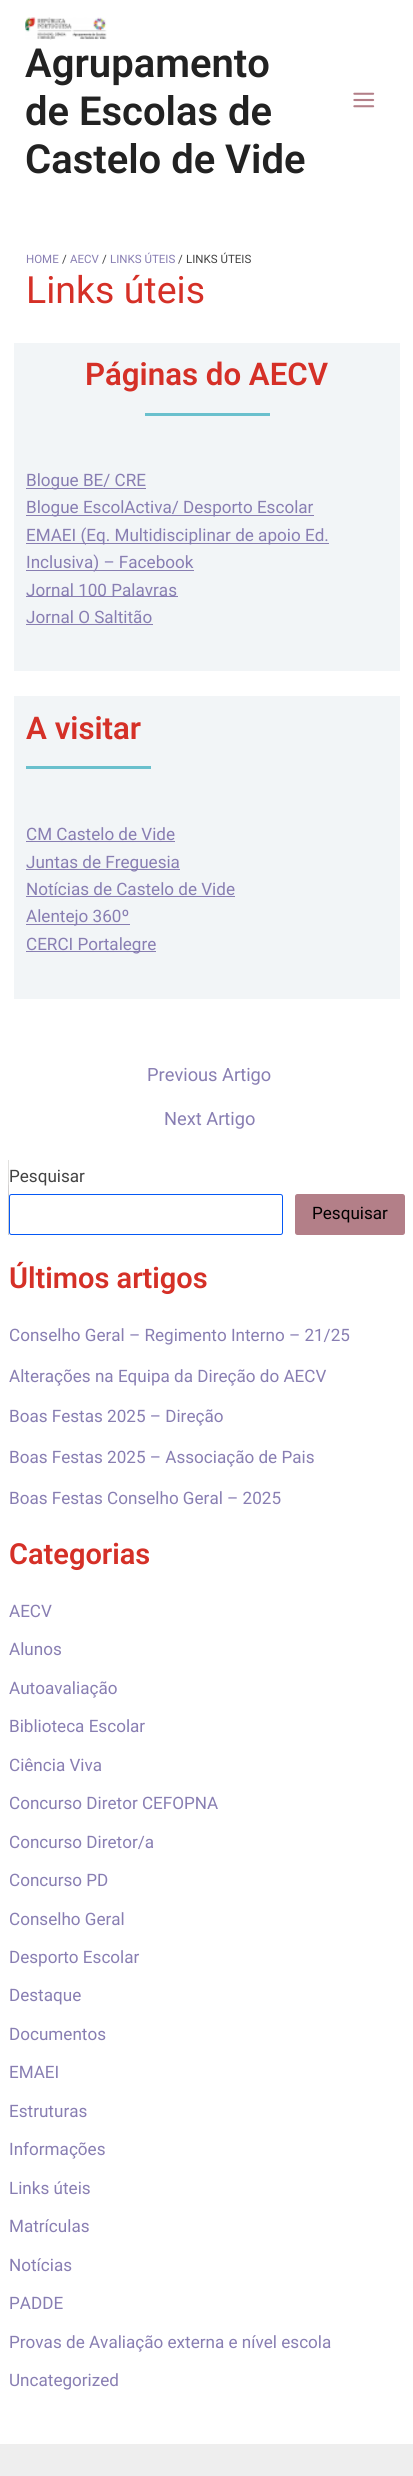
#include <cairo/cairo.h>
#include <math.h>
#include <stddef.h>


static void rounded_rect(cairo_t *cr, double x, double y, double w, double h, double r) {
  cairo_new_sub_path(cr);
  cairo_arc(cr, x + w - r, y + h - r, r, 0, M_PI / 2);
  cairo_arc(cr, x + r, y + h - r, r, M_PI / 2, M_PI);
  cairo_arc(cr, x + r, y + r, r, M_PI, 1.5 * M_PI);
  cairo_arc(cr, x + w - r, y + r, r, 1.5 * M_PI, 2 * M_PI);
  cairo_close_path(cr);
}

static void draw_image(cairo_t *cr, const char *path, double x, double y, double w, double h) {
  cairo_surface_t *image = cairo_image_surface_create_from_png(path);
  cairo_save(cr);
  cairo_set_source_surface(cr, image, x, y);
  cairo_rectangle(cr, x, y, w, h);
  cairo_fill(cr);
  cairo_restore(cr);
  cairo_surface_destroy(image);
}

static void draw(cairo_t *cr) {
  cairo_set_source_rgb(cr, 1, 1, 1);
  cairo_paint(cr);
  draw_image(cr, "images/1.png", 25, 17, 82, 23);
  draw_image(cr, "images/2.png", 353, 92, 22, 16);
  cairo_set_source_rgb(cr, 242 / 255.0, 245 / 255.0, 247 / 255.0);
  cairo_rectangle(cr, 14, 343, 386, 328);
  cairo_fill(cr);
  cairo_set_source_rgb(cr, 106 / 255.0, 192 / 255.0, 205 / 255.0);
  cairo_rectangle(cr, 145, 413, 125, 3);
  cairo_fill(cr);
  cairo_set_source_rgb(cr, 136 / 255.0, 126 / 255.0, 178 / 255.0);
  cairo_rectangle(cr, 26, 488, 120, 1);
  cairo_fill(cr);
  cairo_rectangle(cr, 26, 515, 288, 1);
  cairo_fill(cr);
  cairo_rectangle(cr, 26, 543, 303, 1);
  cairo_fill(cr);
  cairo_rectangle(cr, 26, 570, 168, 1);
  cairo_fill(cr);
  cairo_rectangle(cr, 26, 596, 152, 1);
  cairo_fill(cr);
  cairo_rectangle(cr, 26, 624, 127, 1);
  cairo_fill(cr);
  cairo_set_source_rgb(cr, 242 / 255.0, 245 / 255.0, 247 / 255.0);
  cairo_rectangle(cr, 14, 696, 386, 303);
  cairo_fill(cr);
  cairo_set_source_rgb(cr, 106 / 255.0, 192 / 255.0, 205 / 255.0);
  cairo_rectangle(cr, 26, 766, 125, 3);
  cairo_fill(cr);
  cairo_set_source_rgb(cr, 136 / 255.0, 126 / 255.0, 178 / 255.0);
  cairo_rectangle(cr, 26, 841, 149, 1);
  cairo_fill(cr);
  cairo_rectangle(cr, 26, 869, 154, 1);
  cairo_fill(cr);
  cairo_rectangle(cr, 26, 896, 209, 1);
  cairo_fill(cr);
  cairo_rectangle(cr, 26, 924, 104, 1);
  cairo_fill(cr);
  cairo_rectangle(cr, 26, 951, 130, 1);
  cairo_fill(cr);
  draw_image(cr, "images/3.png", 8, 1160, 1, 75);
  rounded_rect(cr, 9.5, 1194.5, 273, 40, 2);
  cairo_set_source_rgb(cr, 5 / 255.0, 88 / 255.0, 245 / 255.0);
  cairo_set_line_width(cr, 1);
  cairo_stroke(cr);
  cairo_set_source_rgb(cr, 179 / 255.0, 127 / 255.0, 136 / 255.0);
  rounded_rect(cr, 295, 1194, 110, 41, 2.5);
  cairo_fill(cr);
  cairo_set_source_rgb(cr, 238 / 255.0, 238 / 255.0, 238 / 255.0);
  cairo_rectangle(cr, 0, 2444, 413, 32);
  cairo_fill(cr);
  cairo_select_font_face(cr, "Roboto SemiBold", CAIRO_FONT_SLANT_NORMAL, CAIRO_FONT_WEIGHT_NORMAL);
  cairo_set_font_size(cr, 40);
  cairo_set_source_rgb(cr, 34 / 255.0, 34 / 255.0, 34 / 255.0);
  cairo_move_to(cr, 25, 77);
  cairo_show_text(cr, "Agrupamento");
  cairo_move_to(cr, 25, 125);
  cairo_show_text(cr, "de Escolas de");
  cairo_move_to(cr, 25, 173);
  cairo_show_text(cr, "Castelo de Vide");
  cairo_select_font_face(cr, "Roboto", CAIRO_FONT_SLANT_NORMAL, CAIRO_FONT_WEIGHT_NORMAL);
  cairo_set_font_size(cr, 11.5);
  cairo_set_source_rgb(cr, 136 / 255.0, 126 / 255.0, 178 / 255.0);
  cairo_move_to(cr, 26, 263);
  cairo_show_text(cr, "HOME");
  cairo_set_source_rgb(cr, 66 / 255.0, 66 / 255.0, 66 / 255.0);
  cairo_move_to(cr, 62, 263);
  cairo_show_text(cr, "/");
  cairo_set_source_rgb(cr, 136 / 255.0, 126 / 255.0, 178 / 255.0);
  cairo_move_to(cr, 70, 263);
  cairo_show_text(cr, "AECV");
  cairo_set_source_rgb(cr, 66 / 255.0, 66 / 255.0, 66 / 255.0);
  cairo_move_to(cr, 102, 263);
  cairo_show_text(cr, "/");
  cairo_set_source_rgb(cr, 136 / 255.0, 126 / 255.0, 178 / 255.0);
  cairo_move_to(cr, 110, 263);
  cairo_show_text(cr, "LINKS ÚTEIS");
  cairo_set_source_rgb(cr, 66 / 255.0, 66 / 255.0, 66 / 255.0);
  cairo_move_to(cr, 178, 263);
  cairo_show_text(cr, "/");
  cairo_move_to(cr, 186, 263);
  cairo_show_text(cr, "LINKS ÚTEIS");
  cairo_set_font_size(cr, 37.5);
  cairo_set_source_rgb(cr, 213 / 255.0, 48 / 255.0, 39 / 255.0);
  cairo_move_to(cr, 26, 303);
  cairo_show_text(cr, "Links úteis");
  cairo_select_font_face(cr, "Roboto SemiBold", CAIRO_FONT_SLANT_NORMAL, CAIRO_FONT_WEIGHT_NORMAL);
  cairo_set_font_size(cr, 31.25);
  cairo_move_to(cr, 85, 385);
  cairo_show_text(cr, "Páginas do AECV");
  cairo_select_font_face(cr, "Roboto", CAIRO_FONT_SLANT_NORMAL, CAIRO_FONT_WEIGHT_NORMAL);
  cairo_set_font_size(cr, 17.1);
  cairo_set_source_rgb(cr, 136 / 255.0, 126 / 255.0, 178 / 255.0);
  cairo_move_to(cr, 26, 486);
  cairo_show_text(cr, "Blogue BE/ CRE");
  cairo_move_to(cr, 26, 513);
  cairo_show_text(cr, "Blogue EscolActiva/ Desporto Escolar");
  cairo_move_to(cr, 26, 541);
  cairo_show_text(cr, "EMAEI (Eq. Multidisciplinar de apoio Ed.");
  cairo_move_to(cr, 26, 568);
  cairo_show_text(cr, "Inclusiva) – Facebook");
  cairo_move_to(cr, 26, 596);
  cairo_show_text(cr, "Jornal 100 Palavras");
  cairo_move_to(cr, 26, 623);
  cairo_show_text(cr, "Jornal O Saltitão");
  cairo_select_font_face(cr, "Roboto SemiBold", CAIRO_FONT_SLANT_NORMAL, CAIRO_FONT_WEIGHT_NORMAL);
  cairo_set_font_size(cr, 31.25);
  cairo_set_source_rgb(cr, 213 / 255.0, 48 / 255.0, 39 / 255.0);
  cairo_move_to(cr, 26, 739);
  cairo_show_text(cr, "A visitar");
  cairo_select_font_face(cr, "Roboto", CAIRO_FONT_SLANT_NORMAL, CAIRO_FONT_WEIGHT_NORMAL);
  cairo_set_font_size(cr, 17.1);
  cairo_set_source_rgb(cr, 136 / 255.0, 126 / 255.0, 178 / 255.0);
  cairo_move_to(cr, 26, 840);
  cairo_show_text(cr, "CM Castelo de Vide");
  cairo_move_to(cr, 26, 868);
  cairo_show_text(cr, "Juntas de Freguesia");
  cairo_move_to(cr, 26, 895);
  cairo_show_text(cr, "Notícias de Castelo de Vide");
  cairo_move_to(cr, 26, 922);
  cairo_show_text(cr, "Alentejo 360º");
  cairo_move_to(cr, 26, 950);
  cairo_show_text(cr, "CERCI Portalegre");
  cairo_set_font_size(cr, 18.25);
  cairo_move_to(cr, 147, 1081);
  cairo_show_text(cr, "Previous Artigo");
  cairo_move_to(cr, 164, 1125);
  cairo_show_text(cr, "Next Artigo");
  cairo_set_font_size(cr, 17.1);
  cairo_set_source_rgb(cr, 66 / 255.0, 66 / 255.0, 66 / 255.0);
  cairo_move_to(cr, 9, 1182);
  cairo_show_text(cr, "Pesquisar");
  cairo_set_source_rgb(cr, 0, 0, 0);
  cairo_move_to(cr, 312, 1219);
  cairo_show_text(cr, "Pesquisar");
  cairo_select_font_face(cr, "Roboto SemiBold", CAIRO_FONT_SLANT_NORMAL, CAIRO_FONT_WEIGHT_NORMAL);
  cairo_set_font_size(cr, 29);
  cairo_set_source_rgb(cr, 213 / 255.0, 48 / 255.0, 39 / 255.0);
  cairo_move_to(cr, 9, 1288);
  cairo_show_text(cr, "Últimos artigos");
  cairo_select_font_face(cr, "Roboto", CAIRO_FONT_SLANT_NORMAL, CAIRO_FONT_WEIGHT_NORMAL);
  cairo_set_font_size(cr, 17.1);
  cairo_set_source_rgb(cr, 136 / 255.0, 126 / 255.0, 178 / 255.0);
  cairo_move_to(cr, 9, 1341);
  cairo_show_text(cr, "Conselho Geral – Regimento Interno – 21/25");
  cairo_move_to(cr, 9, 1382);
  cairo_show_text(cr, "Alterações na Equipa da Direção do AECV");
  cairo_move_to(cr, 9, 1422);
  cairo_show_text(cr, "Boas Festas 2025 – Direção");
  cairo_move_to(cr, 9, 1463);
  cairo_show_text(cr, "Boas Festas 2025 – Associação de Pais");
  cairo_move_to(cr, 9, 1504);
  cairo_show_text(cr, "Boas Festas Conselho Geral – 2025");
  cairo_select_font_face(cr, "Roboto SemiBold", CAIRO_FONT_SLANT_NORMAL, CAIRO_FONT_WEIGHT_NORMAL);
  cairo_set_font_size(cr, 29);
  cairo_set_source_rgb(cr, 213 / 255.0, 48 / 255.0, 39 / 255.0);
  cairo_move_to(cr, 9, 1564);
  cairo_show_text(cr, "Categorias");
  cairo_select_font_face(cr, "Roboto", CAIRO_FONT_SLANT_NORMAL, CAIRO_FONT_WEIGHT_NORMAL);
  cairo_set_font_size(cr, 17.1);
  cairo_set_source_rgb(cr, 136 / 255.0, 126 / 255.0, 178 / 255.0);
  cairo_move_to(cr, 9, 1617);
  cairo_show_text(cr, "AECV");
  cairo_move_to(cr, 9, 1655);
  cairo_show_text(cr, "Alunos");
  cairo_move_to(cr, 9, 1694);
  cairo_show_text(cr, "Autoavaliação");
  cairo_move_to(cr, 9, 1732);
  cairo_show_text(cr, "Biblioteca Escolar");
  cairo_move_to(cr, 9, 1771);
  cairo_show_text(cr, "Ciência Viva");
  cairo_move_to(cr, 9, 1809);
  cairo_show_text(cr, "Concurso Diretor CEFOPNA");
  cairo_move_to(cr, 9, 1848);
  cairo_show_text(cr, "Concurso Diretor/a");
  cairo_move_to(cr, 9, 1886);
  cairo_show_text(cr, "Concurso PD");
  cairo_move_to(cr, 9, 1925);
  cairo_show_text(cr, "Conselho Geral");
  cairo_move_to(cr, 9, 1963);
  cairo_show_text(cr, "Desporto Escolar");
  cairo_move_to(cr, 9, 2001);
  cairo_show_text(cr, "Destaque");
  cairo_move_to(cr, 9, 2040);
  cairo_show_text(cr, "Documentos");
  cairo_move_to(cr, 9, 2078);
  cairo_show_text(cr, "EMAEI");
  cairo_move_to(cr, 9, 2117);
  cairo_show_text(cr, "Estruturas");
  cairo_move_to(cr, 9, 2155);
  cairo_show_text(cr, "Informações");
  cairo_move_to(cr, 9, 2194);
  cairo_show_text(cr, "Links úteis");
  cairo_move_to(cr, 9, 2232);
  cairo_show_text(cr, "Matrículas");
  cairo_move_to(cr, 9, 2271);
  cairo_show_text(cr, "Notícias");
  cairo_move_to(cr, 9, 2309);
  cairo_show_text(cr, "PADDE");
  cairo_move_to(cr, 9, 2348);
  cairo_show_text(cr, "Provas de Avaliação externa e nível escola");
  cairo_move_to(cr, 9, 2386);
  cairo_show_text(cr, "Uncategorized");
}

int main(void) {
  cairo_surface_t *surface = cairo_image_surface_create(CAIRO_FORMAT_RGB24, 413, 2476);
  cairo_t *cr = cairo_create(surface);
  cairo_font_options_t *options = cairo_font_options_create();
  cairo_font_options_set_hint_metrics(options, CAIRO_HINT_METRICS_OFF);
  cairo_font_options_set_hint_style(options, CAIRO_HINT_STYLE_NONE);
  cairo_set_font_options(cr, options);
  cairo_set_miter_limit(cr, 4);
  draw(cr);
  cairo_surface_write_to_png(surface, "out.png");
  cairo_font_options_destroy(options);
  cairo_destroy(cr);
  cairo_surface_destroy(surface);
  return 0;
}
